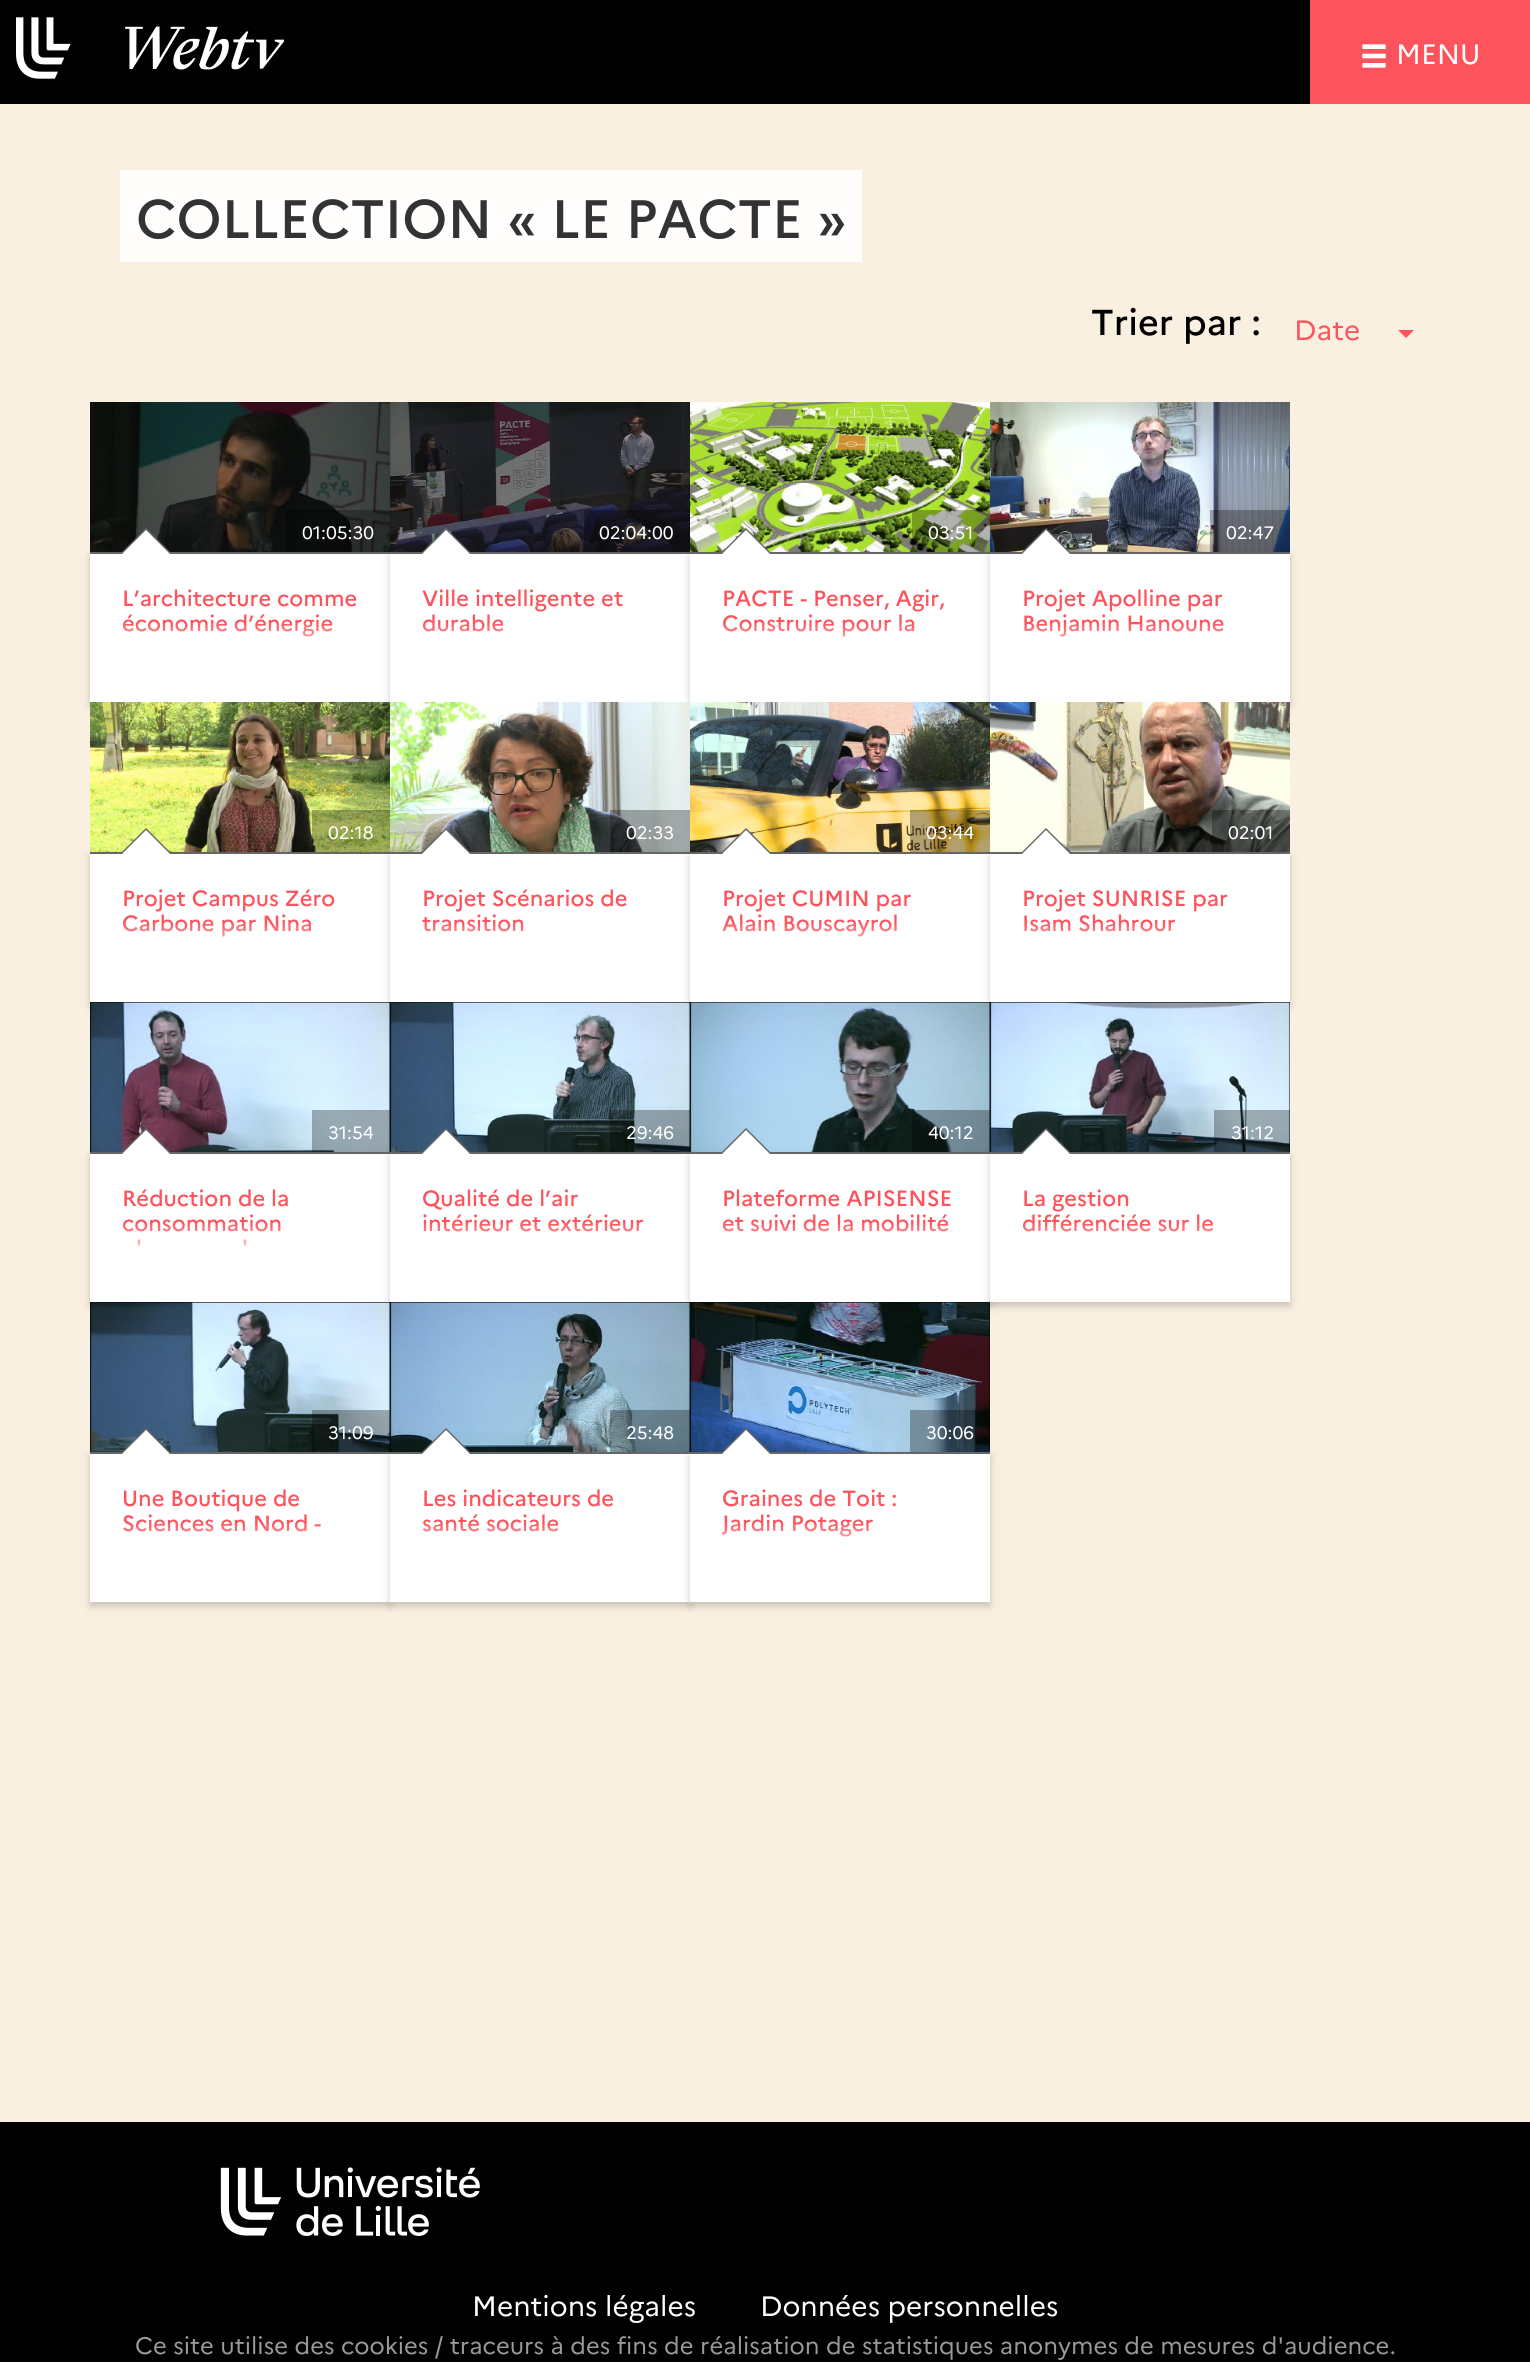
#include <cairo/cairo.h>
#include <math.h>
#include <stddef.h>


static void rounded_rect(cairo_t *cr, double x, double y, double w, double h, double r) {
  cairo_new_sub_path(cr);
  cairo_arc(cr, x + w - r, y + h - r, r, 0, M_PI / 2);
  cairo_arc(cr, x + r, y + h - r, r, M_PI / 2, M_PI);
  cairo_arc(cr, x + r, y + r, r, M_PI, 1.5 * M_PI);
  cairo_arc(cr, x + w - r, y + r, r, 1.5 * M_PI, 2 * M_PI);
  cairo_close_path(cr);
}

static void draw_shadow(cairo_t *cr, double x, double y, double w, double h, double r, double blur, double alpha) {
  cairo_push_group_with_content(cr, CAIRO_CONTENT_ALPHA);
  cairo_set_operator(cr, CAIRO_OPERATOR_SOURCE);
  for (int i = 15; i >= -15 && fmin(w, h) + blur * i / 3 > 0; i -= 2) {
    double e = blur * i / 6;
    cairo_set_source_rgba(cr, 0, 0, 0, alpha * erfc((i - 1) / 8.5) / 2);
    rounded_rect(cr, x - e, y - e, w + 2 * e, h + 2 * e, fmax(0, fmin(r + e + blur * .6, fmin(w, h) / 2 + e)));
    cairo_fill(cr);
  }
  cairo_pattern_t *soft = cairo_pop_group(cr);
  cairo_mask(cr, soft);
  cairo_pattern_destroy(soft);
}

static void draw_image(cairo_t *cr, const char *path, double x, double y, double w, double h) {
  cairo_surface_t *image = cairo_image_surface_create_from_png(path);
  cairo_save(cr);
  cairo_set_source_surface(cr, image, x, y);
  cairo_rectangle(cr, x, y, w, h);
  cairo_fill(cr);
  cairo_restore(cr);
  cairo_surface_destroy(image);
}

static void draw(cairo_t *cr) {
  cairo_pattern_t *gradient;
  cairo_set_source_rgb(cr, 250 / 255.0, 240 / 255.0, 225 / 255.0);
  cairo_paint(cr);
  cairo_set_source_rgb(cr, 0, 0, 0);
  cairo_rectangle(cr, 0, 0, 1310, 104);
  cairo_fill(cr);
  draw_image(cr, "images/1.png", 16, 17, 268, 62);
  cairo_set_source_rgb(cr, 252 / 255.0, 83 / 255.0, 92 / 255.0);
  cairo_rectangle(cr, 1310, 0, 220, 104);
  cairo_fill(cr);
  draw_image(cr, "images/2.png", 1362, 44, 24, 24);
  cairo_set_source_rgb(cr, 1, 254 / 255.0, 252 / 255.0);
  cairo_rectangle(cr, 120, 170, 742, 92);
  cairo_fill(cr);
  cairo_set_source_rgb(cr, 252 / 255.0, 83 / 255.0, 92 / 255.0);
  cairo_new_path(cr);
  cairo_move_to(cr, 1398, 330);
  cairo_line_to(cr, 1414, 330);
  cairo_line_to(cr, 1406, 338);
  cairo_close_path(cr);
  cairo_fill(cr);
  draw_image(cr, "images/3.png", 90, 402, 300, 150);
  cairo_set_source_rgba(cr, 0, 0, 0, 0.3);
  cairo_rectangle(cr, 286, 510, 104, 42);
  cairo_fill(cr);
  cairo_set_source_rgb(cr, 0, 0, 0);
  draw_shadow(cr, 90, 556, 300, 150, 0, 4, 0.2);
  cairo_set_source_rgb(cr, 1, 1, 1);
  cairo_rectangle(cr, 90, 554, 300, 148);
  cairo_fill(cr);
  cairo_set_source_rgb(cr, 102 / 255.0, 102 / 255.0, 102 / 255.0);
  cairo_rectangle(cr, 90, 552, 300, 2);
  cairo_fill(cr);
  cairo_new_path(cr);
  cairo_move_to(cr, 170, 552);
  cairo_line_to(cr, 122, 552);
  cairo_line_to(cr, 146, 528);
  cairo_close_path(cr);
  cairo_fill(cr);
  cairo_set_source_rgb(cr, 1, 1, 1);
  cairo_new_path(cr);
  cairo_move_to(cr, 170, 554);
  cairo_line_to(cr, 122, 554);
  cairo_line_to(cr, 146, 530);
  cairo_close_path(cr);
  cairo_fill(cr);
  draw_image(cr, "images/4.png", 390, 402, 300, 150);
  cairo_set_source_rgba(cr, 0, 0, 0, 0.3);
  cairo_rectangle(cr, 584, 510, 106, 42);
  cairo_fill(cr);
  cairo_set_source_rgb(cr, 0, 0, 0);
  draw_shadow(cr, 390, 556, 300, 150, 0, 4, 0.2);
  cairo_set_source_rgb(cr, 1, 1, 1);
  cairo_rectangle(cr, 390, 554, 300, 148);
  cairo_fill(cr);
  cairo_set_source_rgb(cr, 102 / 255.0, 102 / 255.0, 102 / 255.0);
  cairo_rectangle(cr, 390, 552, 300, 2);
  cairo_fill(cr);
  cairo_new_path(cr);
  cairo_move_to(cr, 470, 552);
  cairo_line_to(cr, 422, 552);
  cairo_line_to(cr, 446, 528);
  cairo_close_path(cr);
  cairo_fill(cr);
  cairo_set_source_rgb(cr, 1, 1, 1);
  cairo_new_path(cr);
  cairo_move_to(cr, 470, 554);
  cairo_line_to(cr, 422, 554);
  cairo_line_to(cr, 446, 530);
  cairo_close_path(cr);
  cairo_fill(cr);
  draw_image(cr, "images/5.png", 690, 402, 300, 150);
  cairo_set_source_rgba(cr, 0, 0, 0, 0.3);
  cairo_rectangle(cr, 912, 510, 78, 42);
  cairo_fill(cr);
  cairo_set_source_rgb(cr, 0, 0, 0);
  draw_shadow(cr, 690, 556, 300, 150, 0, 4, 0.2);
  cairo_set_source_rgb(cr, 1, 1, 1);
  cairo_rectangle(cr, 690, 554, 300, 148);
  cairo_fill(cr);
  cairo_set_source_rgb(cr, 102 / 255.0, 102 / 255.0, 102 / 255.0);
  cairo_rectangle(cr, 690, 552, 300, 2);
  cairo_fill(cr);
  cairo_new_path(cr);
  cairo_move_to(cr, 770, 552);
  cairo_line_to(cr, 722, 552);
  cairo_line_to(cr, 746, 528);
  cairo_close_path(cr);
  cairo_fill(cr);
  cairo_set_source_rgb(cr, 1, 1, 1);
  cairo_new_path(cr);
  cairo_move_to(cr, 770, 554);
  cairo_line_to(cr, 722, 554);
  cairo_line_to(cr, 746, 530);
  cairo_close_path(cr);
  cairo_fill(cr);
  draw_image(cr, "images/6.png", 990, 402, 300, 150);
  cairo_set_source_rgba(cr, 0, 0, 0, 0.3);
  cairo_rectangle(cr, 1210, 510, 80, 42);
  cairo_fill(cr);
  cairo_set_source_rgb(cr, 0, 0, 0);
  draw_shadow(cr, 990, 556, 300, 150, 0, 4, 0.2);
  cairo_set_source_rgb(cr, 1, 1, 1);
  cairo_rectangle(cr, 990, 554, 300, 148);
  cairo_fill(cr);
  cairo_set_source_rgb(cr, 102 / 255.0, 102 / 255.0, 102 / 255.0);
  cairo_rectangle(cr, 990, 552, 300, 2);
  cairo_fill(cr);
  cairo_new_path(cr);
  cairo_move_to(cr, 1070, 552);
  cairo_line_to(cr, 1022, 552);
  cairo_line_to(cr, 1046, 528);
  cairo_close_path(cr);
  cairo_fill(cr);
  cairo_set_source_rgb(cr, 1, 1, 1);
  cairo_new_path(cr);
  cairo_move_to(cr, 1070, 554);
  cairo_line_to(cr, 1022, 554);
  cairo_line_to(cr, 1046, 530);
  cairo_close_path(cr);
  cairo_fill(cr);
  draw_image(cr, "images/7.png", 90, 702, 300, 150);
  cairo_set_source_rgba(cr, 0, 0, 0, 0.3);
  cairo_rectangle(cr, 312, 810, 78, 42);
  cairo_fill(cr);
  cairo_set_source_rgb(cr, 0, 0, 0);
  draw_shadow(cr, 90, 856, 300, 150, 0, 4, 0.2);
  cairo_set_source_rgb(cr, 1, 1, 1);
  cairo_rectangle(cr, 90, 854, 300, 148);
  cairo_fill(cr);
  cairo_set_source_rgb(cr, 102 / 255.0, 102 / 255.0, 102 / 255.0);
  cairo_rectangle(cr, 90, 852, 300, 2);
  cairo_fill(cr);
  cairo_new_path(cr);
  cairo_move_to(cr, 170, 852);
  cairo_line_to(cr, 122, 852);
  cairo_line_to(cr, 146, 828);
  cairo_close_path(cr);
  cairo_fill(cr);
  cairo_set_source_rgb(cr, 1, 1, 1);
  cairo_new_path(cr);
  cairo_move_to(cr, 170, 854);
  cairo_line_to(cr, 122, 854);
  cairo_line_to(cr, 146, 830);
  cairo_close_path(cr);
  cairo_fill(cr);
  draw_image(cr, "images/8.png", 390, 702, 300, 150);
  cairo_set_source_rgba(cr, 0, 0, 0, 0.3);
  cairo_rectangle(cr, 610, 810, 80, 42);
  cairo_fill(cr);
  cairo_set_source_rgb(cr, 0, 0, 0);
  draw_shadow(cr, 390, 856, 300, 150, 0, 4, 0.2);
  cairo_set_source_rgb(cr, 1, 1, 1);
  cairo_rectangle(cr, 390, 854, 300, 148);
  cairo_fill(cr);
  cairo_set_source_rgb(cr, 102 / 255.0, 102 / 255.0, 102 / 255.0);
  cairo_rectangle(cr, 390, 852, 300, 2);
  cairo_fill(cr);
  cairo_new_path(cr);
  cairo_move_to(cr, 470, 852);
  cairo_line_to(cr, 422, 852);
  cairo_line_to(cr, 446, 828);
  cairo_close_path(cr);
  cairo_fill(cr);
  cairo_set_source_rgb(cr, 1, 1, 1);
  cairo_new_path(cr);
  cairo_move_to(cr, 470, 854);
  cairo_line_to(cr, 422, 854);
  cairo_line_to(cr, 446, 830);
  cairo_close_path(cr);
  cairo_fill(cr);
  draw_image(cr, "images/9.png", 690, 702, 300, 150);
  cairo_set_source_rgba(cr, 0, 0, 0, 0.3);
  cairo_rectangle(cr, 910, 810, 80, 42);
  cairo_fill(cr);
  cairo_set_source_rgb(cr, 0, 0, 0);
  draw_shadow(cr, 690, 856, 300, 150, 0, 4, 0.2);
  cairo_set_source_rgb(cr, 1, 1, 1);
  cairo_rectangle(cr, 690, 854, 300, 148);
  cairo_fill(cr);
  cairo_set_source_rgb(cr, 102 / 255.0, 102 / 255.0, 102 / 255.0);
  cairo_rectangle(cr, 690, 852, 300, 2);
  cairo_fill(cr);
  cairo_new_path(cr);
  cairo_move_to(cr, 770, 852);
  cairo_line_to(cr, 722, 852);
  cairo_line_to(cr, 746, 828);
  cairo_close_path(cr);
  cairo_fill(cr);
  cairo_set_source_rgb(cr, 1, 1, 1);
  cairo_new_path(cr);
  cairo_move_to(cr, 770, 854);
  cairo_line_to(cr, 722, 854);
  cairo_line_to(cr, 746, 830);
  cairo_close_path(cr);
  cairo_fill(cr);
  draw_image(cr, "images/10.png", 990, 702, 300, 150);
  cairo_set_source_rgba(cr, 0, 0, 0, 0.3);
  cairo_rectangle(cr, 1212, 810, 78, 42);
  cairo_fill(cr);
  cairo_set_source_rgb(cr, 0, 0, 0);
  draw_shadow(cr, 990, 856, 300, 150, 0, 4, 0.2);
  cairo_set_source_rgb(cr, 1, 1, 1);
  cairo_rectangle(cr, 990, 854, 300, 148);
  cairo_fill(cr);
  cairo_set_source_rgb(cr, 102 / 255.0, 102 / 255.0, 102 / 255.0);
  cairo_rectangle(cr, 990, 852, 300, 2);
  cairo_fill(cr);
  cairo_new_path(cr);
  cairo_move_to(cr, 1070, 852);
  cairo_line_to(cr, 1022, 852);
  cairo_line_to(cr, 1046, 828);
  cairo_close_path(cr);
  cairo_fill(cr);
  cairo_set_source_rgb(cr, 1, 1, 1);
  cairo_new_path(cr);
  cairo_move_to(cr, 1070, 854);
  cairo_line_to(cr, 1022, 854);
  cairo_line_to(cr, 1046, 830);
  cairo_close_path(cr);
  cairo_fill(cr);
  draw_image(cr, "images/11.png", 90, 1002, 300, 150);
  cairo_set_source_rgba(cr, 0, 0, 0, 0.3);
  cairo_rectangle(cr, 312, 1110, 78, 42);
  cairo_fill(cr);
  cairo_set_source_rgb(cr, 0, 0, 0);
  draw_shadow(cr, 90, 1156, 300, 150, 0, 4, 0.2);
  cairo_set_source_rgb(cr, 1, 1, 1);
  cairo_rectangle(cr, 90, 1154, 300, 148);
  cairo_fill(cr);
  cairo_set_source_rgb(cr, 102 / 255.0, 102 / 255.0, 102 / 255.0);
  cairo_rectangle(cr, 90, 1152, 300, 2);
  cairo_fill(cr);
  cairo_new_path(cr);
  cairo_move_to(cr, 170, 1152);
  cairo_line_to(cr, 122, 1152);
  cairo_line_to(cr, 146, 1128);
  cairo_close_path(cr);
  cairo_fill(cr);
  cairo_set_source_rgb(cr, 1, 1, 1);
  cairo_new_path(cr);
  cairo_move_to(cr, 170, 1154);
  cairo_line_to(cr, 122, 1154);
  cairo_line_to(cr, 146, 1130);
  cairo_close_path(cr);
  cairo_fill(cr);
  draw_image(cr, "images/12.png", 390, 1002, 300, 150);
  cairo_set_source_rgba(cr, 0, 0, 0, 0.3);
  cairo_rectangle(cr, 610, 1110, 80, 42);
  cairo_fill(cr);
  cairo_set_source_rgb(cr, 0, 0, 0);
  draw_shadow(cr, 390, 1156, 300, 150, 0, 4, 0.2);
  cairo_set_source_rgb(cr, 1, 1, 1);
  cairo_rectangle(cr, 390, 1154, 300, 148);
  cairo_fill(cr);
  cairo_set_source_rgb(cr, 102 / 255.0, 102 / 255.0, 102 / 255.0);
  cairo_rectangle(cr, 390, 1152, 300, 2);
  cairo_fill(cr);
  cairo_new_path(cr);
  cairo_move_to(cr, 470, 1152);
  cairo_line_to(cr, 422, 1152);
  cairo_line_to(cr, 446, 1128);
  cairo_close_path(cr);
  cairo_fill(cr);
  cairo_set_source_rgb(cr, 1, 1, 1);
  cairo_new_path(cr);
  cairo_move_to(cr, 470, 1154);
  cairo_line_to(cr, 422, 1154);
  cairo_line_to(cr, 446, 1130);
  cairo_close_path(cr);
  cairo_fill(cr);
  draw_image(cr, "images/13.png", 690, 1002, 300, 150);
  cairo_set_source_rgba(cr, 0, 0, 0, 0.3);
  cairo_rectangle(cr, 912, 1110, 78, 42);
  cairo_fill(cr);
  cairo_set_source_rgb(cr, 0, 0, 0);
  draw_shadow(cr, 690, 1156, 300, 150, 0, 4, 0.2);
  cairo_set_source_rgb(cr, 1, 1, 1);
  cairo_rectangle(cr, 690, 1154, 300, 148);
  cairo_fill(cr);
  cairo_set_source_rgb(cr, 102 / 255.0, 102 / 255.0, 102 / 255.0);
  cairo_rectangle(cr, 690, 1152, 300, 2);
  cairo_fill(cr);
  cairo_new_path(cr);
  cairo_move_to(cr, 770, 1152);
  cairo_line_to(cr, 722, 1152);
  cairo_line_to(cr, 746, 1128);
  cairo_close_path(cr);
  cairo_fill(cr);
  cairo_set_source_rgb(cr, 1, 1, 1);
  cairo_new_path(cr);
  cairo_move_to(cr, 770, 1154);
  cairo_line_to(cr, 722, 1154);
  cairo_line_to(cr, 746, 1130);
  cairo_close_path(cr);
  cairo_fill(cr);
  draw_image(cr, "images/14.png", 990, 1002, 300, 150);
  cairo_set_source_rgba(cr, 0, 0, 0, 0.3);
  cairo_rectangle(cr, 1214, 1110, 76, 42);
  cairo_fill(cr);
  cairo_set_source_rgb(cr, 0, 0, 0);
  draw_shadow(cr, 990, 1156, 300, 150, 0, 4, 0.2);
  cairo_set_source_rgb(cr, 1, 1, 1);
  cairo_rectangle(cr, 990, 1154, 300, 148);
  cairo_fill(cr);
  cairo_set_source_rgb(cr, 102 / 255.0, 102 / 255.0, 102 / 255.0);
  cairo_rectangle(cr, 990, 1152, 300, 2);
  cairo_fill(cr);
  cairo_new_path(cr);
  cairo_move_to(cr, 1070, 1152);
  cairo_line_to(cr, 1022, 1152);
  cairo_line_to(cr, 1046, 1128);
  cairo_close_path(cr);
  cairo_fill(cr);
  cairo_set_source_rgb(cr, 1, 1, 1);
  cairo_new_path(cr);
  cairo_move_to(cr, 1070, 1154);
  cairo_line_to(cr, 1022, 1154);
  cairo_line_to(cr, 1046, 1130);
  cairo_close_path(cr);
  cairo_fill(cr);
  draw_image(cr, "images/15.png", 90, 1302, 300, 150);
  cairo_set_source_rgba(cr, 0, 0, 0, 0.3);
  cairo_rectangle(cr, 312, 1410, 78, 42);
  cairo_fill(cr);
  cairo_set_source_rgb(cr, 0, 0, 0);
  draw_shadow(cr, 90, 1456, 300, 150, 0, 4, 0.2);
  cairo_set_source_rgb(cr, 1, 1, 1);
  cairo_rectangle(cr, 90, 1454, 300, 148);
  cairo_fill(cr);
  cairo_set_source_rgb(cr, 102 / 255.0, 102 / 255.0, 102 / 255.0);
  cairo_rectangle(cr, 90, 1452, 300, 2);
  cairo_fill(cr);
  cairo_new_path(cr);
  cairo_move_to(cr, 170, 1452);
  cairo_line_to(cr, 122, 1452);
  cairo_line_to(cr, 146, 1428);
  cairo_close_path(cr);
  cairo_fill(cr);
  cairo_set_source_rgb(cr, 1, 1, 1);
  cairo_new_path(cr);
  cairo_move_to(cr, 170, 1454);
  cairo_line_to(cr, 122, 1454);
  cairo_line_to(cr, 146, 1430);
  cairo_close_path(cr);
  cairo_fill(cr);
  draw_image(cr, "images/16.png", 390, 1302, 300, 150);
  cairo_set_source_rgba(cr, 0, 0, 0, 0.3);
  cairo_rectangle(cr, 610, 1410, 80, 42);
  cairo_fill(cr);
  cairo_set_source_rgb(cr, 0, 0, 0);
  draw_shadow(cr, 390, 1456, 300, 150, 0, 4, 0.2);
  cairo_set_source_rgb(cr, 1, 1, 1);
  cairo_rectangle(cr, 390, 1454, 300, 148);
  cairo_fill(cr);
  cairo_set_source_rgb(cr, 102 / 255.0, 102 / 255.0, 102 / 255.0);
  cairo_rectangle(cr, 390, 1452, 300, 2);
  cairo_fill(cr);
  cairo_new_path(cr);
  cairo_move_to(cr, 470, 1452);
  cairo_line_to(cr, 422, 1452);
  cairo_line_to(cr, 446, 1428);
  cairo_close_path(cr);
  cairo_fill(cr);
  cairo_set_source_rgb(cr, 1, 1, 1);
  cairo_new_path(cr);
  cairo_move_to(cr, 470, 1454);
  cairo_line_to(cr, 422, 1454);
  cairo_line_to(cr, 446, 1430);
  cairo_close_path(cr);
  cairo_fill(cr);
  draw_image(cr, "images/17.png", 690, 1302, 300, 150);
  cairo_set_source_rgba(cr, 0, 0, 0, 0.3);
  cairo_rectangle(cr, 910, 1410, 80, 42);
  cairo_fill(cr);
  cairo_set_source_rgb(cr, 0, 0, 0);
  draw_shadow(cr, 690, 1456, 300, 150, 0, 4, 0.2);
  cairo_set_source_rgb(cr, 1, 1, 1);
  cairo_rectangle(cr, 690, 1454, 300, 148);
  cairo_fill(cr);
  cairo_set_source_rgb(cr, 102 / 255.0, 102 / 255.0, 102 / 255.0);
  cairo_rectangle(cr, 690, 1452, 300, 2);
  cairo_fill(cr);
  cairo_new_path(cr);
  cairo_move_to(cr, 770, 1452);
  cairo_line_to(cr, 722, 1452);
  cairo_line_to(cr, 746, 1428);
  cairo_close_path(cr);
  cairo_fill(cr);
  cairo_set_source_rgb(cr, 1, 1, 1);
  cairo_new_path(cr);
  cairo_move_to(cr, 770, 1454);
  cairo_line_to(cr, 722, 1454);
  cairo_line_to(cr, 746, 1430);
  cairo_close_path(cr);
  cairo_fill(cr);
  cairo_set_source_rgb(cr, 0, 0, 0);
  cairo_rectangle(cr, 0, 2122, 1530, 240);
  cairo_fill(cr);
  draw_image(cr, "images/18.png", 220, 2167, 260, 69);
  cairo_select_font_face(cr, "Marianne", CAIRO_FONT_SLANT_NORMAL, CAIRO_FONT_WEIGHT_NORMAL);
  cairo_set_font_size(cr, 28);
  cairo_set_source_rgb(cr, 1, 1, 1);
  cairo_move_to(cr, 1396, 64);
  cairo_show_text(cr, "MENU");
  cairo_select_font_face(cr, "Marianne Medium", CAIRO_FONT_SLANT_NORMAL, CAIRO_FONT_WEIGHT_NORMAL);
  cairo_set_font_size(cr, 54);
  cairo_set_source_rgb(cr, 51 / 255.0, 51 / 255.0, 51 / 255.0);
  cairo_move_to(cr, 136, 238);
  cairo_show_text(cr, "COLLECTION « LE PACTE »");
  cairo_set_font_size(cr, 36);
  cairo_set_source_rgb(cr, 0, 0, 0);
  cairo_move_to(cr, 1091, 335);
  cairo_show_text(cr, "Trier par :");
  cairo_select_font_face(cr, "Marianne", CAIRO_FONT_SLANT_NORMAL, CAIRO_FONT_WEIGHT_NORMAL);
  cairo_set_font_size(cr, 28);
  cairo_set_source_rgb(cr, 252 / 255.0, 83 / 255.0, 92 / 255.0);
  cairo_move_to(cr, 1294, 340);
  cairo_show_text(cr, "Date");
  cairo_set_font_size(cr, 18);
  cairo_set_source_rgb(cr, 1, 1, 1);
  cairo_move_to(cr, 302, 539);
  cairo_show_text(cr, "01:05:30");
  cairo_select_font_face(cr, "Marianne Medium", CAIRO_FONT_SLANT_NORMAL, CAIRO_FONT_WEIGHT_NORMAL);
  cairo_set_font_size(cr, 22);
  cairo_set_source_rgb(cr, 252 / 255.0, 83 / 255.0, 92 / 255.0);
  cairo_move_to(cr, 122, 606);
  cairo_show_text(cr, "L’architecture comme");
  cairo_move_to(cr, 122, 631);
  cairo_show_text(cr, "économie d’énergie");
  gradient = cairo_pattern_create_linear(240, 622, 240, 670);
  cairo_pattern_add_color_stop_rgba(gradient, 0, 1, 1, 1, 0);
  cairo_pattern_add_color_stop_rgba(gradient, 0.8, 1, 1, 1, 1);
  cairo_set_source(cr, gradient);
  cairo_pattern_destroy(gradient);
  cairo_rectangle(cr, 123, 623, 209, 14);
  cairo_fill(cr);
  cairo_select_font_face(cr, "Marianne", CAIRO_FONT_SLANT_NORMAL, CAIRO_FONT_WEIGHT_NORMAL);
  cairo_set_font_size(cr, 18);
  cairo_set_source_rgb(cr, 1, 1, 1);
  cairo_move_to(cr, 599, 539);
  cairo_show_text(cr, "02:04:00");
  cairo_select_font_face(cr, "Marianne Medium", CAIRO_FONT_SLANT_NORMAL, CAIRO_FONT_WEIGHT_NORMAL);
  cairo_set_font_size(cr, 22);
  cairo_set_source_rgb(cr, 252 / 255.0, 83 / 255.0, 92 / 255.0);
  cairo_move_to(cr, 422, 606);
  cairo_show_text(cr, "Ville intelligente et");
  cairo_move_to(cr, 422, 631);
  cairo_show_text(cr, "durable");
  gradient = cairo_pattern_create_linear(540, 622, 540, 670);
  cairo_pattern_add_color_stop_rgba(gradient, 0, 1, 1, 1, 0);
  cairo_pattern_add_color_stop_rgba(gradient, 0.8, 1, 1, 1, 1);
  cairo_set_source(cr, gradient);
  cairo_pattern_destroy(gradient);
  cairo_rectangle(cr, 423, 623, 80, 9);
  cairo_fill(cr);
  cairo_select_font_face(cr, "Marianne", CAIRO_FONT_SLANT_NORMAL, CAIRO_FONT_WEIGHT_NORMAL);
  cairo_set_font_size(cr, 18);
  cairo_set_source_rgb(cr, 1, 1, 1);
  cairo_move_to(cr, 928, 539);
  cairo_show_text(cr, "03:51");
  cairo_select_font_face(cr, "Marianne Medium", CAIRO_FONT_SLANT_NORMAL, CAIRO_FONT_WEIGHT_NORMAL);
  cairo_set_font_size(cr, 22);
  cairo_set_source_rgb(cr, 252 / 255.0, 83 / 255.0, 92 / 255.0);
  cairo_move_to(cr, 722, 606);
  cairo_show_text(cr, "PACTE - Penser, Agir,");
  cairo_move_to(cr, 722, 631);
  cairo_show_text(cr, "Construire pour la");
  gradient = cairo_pattern_create_linear(840, 622, 840, 670);
  cairo_pattern_add_color_stop_rgba(gradient, 0, 1, 1, 1, 0);
  cairo_pattern_add_color_stop_rgba(gradient, 0.8, 1, 1, 1, 1);
  cairo_set_source(cr, gradient);
  cairo_pattern_destroy(gradient);
  cairo_rectangle(cr, 723, 623, 192, 14);
  cairo_fill(cr);
  cairo_select_font_face(cr, "Marianne", CAIRO_FONT_SLANT_NORMAL, CAIRO_FONT_WEIGHT_NORMAL);
  cairo_set_font_size(cr, 18);
  cairo_set_source_rgb(cr, 1, 1, 1);
  cairo_move_to(cr, 1226, 539);
  cairo_show_text(cr, "02:47");
  cairo_select_font_face(cr, "Marianne Medium", CAIRO_FONT_SLANT_NORMAL, CAIRO_FONT_WEIGHT_NORMAL);
  cairo_set_font_size(cr, 22);
  cairo_set_source_rgb(cr, 252 / 255.0, 83 / 255.0, 92 / 255.0);
  cairo_move_to(cr, 1022, 606);
  cairo_show_text(cr, "Projet Apolline par");
  cairo_move_to(cr, 1022, 631);
  cairo_show_text(cr, "Benjamin Hanoune");
  gradient = cairo_pattern_create_linear(1140, 622, 1140, 670);
  cairo_pattern_add_color_stop_rgba(gradient, 0, 1, 1, 1, 0);
  cairo_pattern_add_color_stop_rgba(gradient, 0.8, 1, 1, 1, 1);
  cairo_set_source(cr, gradient);
  cairo_pattern_destroy(gradient);
  cairo_rectangle(cr, 1024, 623, 200, 14);
  cairo_fill(cr);
  cairo_select_font_face(cr, "Marianne", CAIRO_FONT_SLANT_NORMAL, CAIRO_FONT_WEIGHT_NORMAL);
  cairo_set_font_size(cr, 18);
  cairo_set_source_rgb(cr, 1, 1, 1);
  cairo_move_to(cr, 328, 839);
  cairo_show_text(cr, "02:18");
  cairo_select_font_face(cr, "Marianne Medium", CAIRO_FONT_SLANT_NORMAL, CAIRO_FONT_WEIGHT_NORMAL);
  cairo_set_font_size(cr, 22);
  cairo_set_source_rgb(cr, 252 / 255.0, 83 / 255.0, 92 / 255.0);
  cairo_move_to(cr, 122, 906);
  cairo_show_text(cr, "Projet Campus Zéro");
  cairo_move_to(cr, 122, 931);
  cairo_show_text(cr, "Carbone par Nina");
  gradient = cairo_pattern_create_linear(240, 922, 240, 970);
  cairo_pattern_add_color_stop_rgba(gradient, 0, 1, 1, 1, 0);
  cairo_pattern_add_color_stop_rgba(gradient, 0.8, 1, 1, 1, 1);
  cairo_set_source(cr, gradient);
  cairo_pattern_destroy(gradient);
  cairo_rectangle(cr, 123, 923, 188, 14);
  cairo_fill(cr);
  cairo_select_font_face(cr, "Marianne", CAIRO_FONT_SLANT_NORMAL, CAIRO_FONT_WEIGHT_NORMAL);
  cairo_set_font_size(cr, 18);
  cairo_set_source_rgb(cr, 1, 1, 1);
  cairo_move_to(cr, 626, 839);
  cairo_show_text(cr, "02:33");
  cairo_select_font_face(cr, "Marianne Medium", CAIRO_FONT_SLANT_NORMAL, CAIRO_FONT_WEIGHT_NORMAL);
  cairo_set_font_size(cr, 22);
  cairo_set_source_rgb(cr, 252 / 255.0, 83 / 255.0, 92 / 255.0);
  cairo_move_to(cr, 422, 906);
  cairo_show_text(cr, "Projet Scénarios de");
  cairo_move_to(cr, 422, 931);
  cairo_show_text(cr, "transition");
  gradient = cairo_pattern_create_linear(540, 922, 540, 970);
  cairo_pattern_add_color_stop_rgba(gradient, 0, 1, 1, 1, 0);
  cairo_pattern_add_color_stop_rgba(gradient, 0.8, 1, 1, 1, 1);
  cairo_set_source(cr, gradient);
  cairo_pattern_destroy(gradient);
  cairo_rectangle(cr, 424, 923, 100, 9);
  cairo_fill(cr);
  cairo_select_font_face(cr, "Marianne", CAIRO_FONT_SLANT_NORMAL, CAIRO_FONT_WEIGHT_NORMAL);
  cairo_set_font_size(cr, 18);
  cairo_set_source_rgb(cr, 1, 1, 1);
  cairo_move_to(cr, 926, 839);
  cairo_show_text(cr, "03:44");
  cairo_select_font_face(cr, "Marianne Medium", CAIRO_FONT_SLANT_NORMAL, CAIRO_FONT_WEIGHT_NORMAL);
  cairo_set_font_size(cr, 22);
  cairo_set_source_rgb(cr, 252 / 255.0, 83 / 255.0, 92 / 255.0);
  cairo_move_to(cr, 722, 906);
  cairo_show_text(cr, "Projet CUMIN par");
  cairo_move_to(cr, 722, 931);
  cairo_show_text(cr, "Alain Bouscayrol");
  gradient = cairo_pattern_create_linear(840, 922, 840, 970);
  cairo_pattern_add_color_stop_rgba(gradient, 0, 1, 1, 1, 0);
  cairo_pattern_add_color_stop_rgba(gradient, 0.8, 1, 1, 1, 1);
  cairo_set_source(cr, gradient);
  cairo_pattern_destroy(gradient);
  cairo_rectangle(cr, 722, 923, 175, 14);
  cairo_fill(cr);
  cairo_select_font_face(cr, "Marianne", CAIRO_FONT_SLANT_NORMAL, CAIRO_FONT_WEIGHT_NORMAL);
  cairo_set_font_size(cr, 18);
  cairo_set_source_rgb(cr, 1, 1, 1);
  cairo_move_to(cr, 1228, 839);
  cairo_show_text(cr, "02:01");
  cairo_select_font_face(cr, "Marianne Medium", CAIRO_FONT_SLANT_NORMAL, CAIRO_FONT_WEIGHT_NORMAL);
  cairo_set_font_size(cr, 22);
  cairo_set_source_rgb(cr, 252 / 255.0, 83 / 255.0, 92 / 255.0);
  cairo_move_to(cr, 1022, 906);
  cairo_show_text(cr, "Projet SUNRISE par");
  cairo_move_to(cr, 1022, 931);
  cairo_show_text(cr, "Isam Shahrour");
  gradient = cairo_pattern_create_linear(1140, 922, 1140, 970);
  cairo_pattern_add_color_stop_rgba(gradient, 0, 1, 1, 1, 0);
  cairo_pattern_add_color_stop_rgba(gradient, 0.8, 1, 1, 1, 1);
  cairo_set_source(cr, gradient);
  cairo_pattern_destroy(gradient);
  cairo_rectangle(cr, 1024, 923, 147, 9);
  cairo_fill(cr);
  cairo_select_font_face(cr, "Marianne", CAIRO_FONT_SLANT_NORMAL, CAIRO_FONT_WEIGHT_NORMAL);
  cairo_set_font_size(cr, 18);
  cairo_set_source_rgb(cr, 1, 1, 1);
  cairo_move_to(cr, 328, 1139);
  cairo_show_text(cr, "31:54");
  cairo_select_font_face(cr, "Marianne Medium", CAIRO_FONT_SLANT_NORMAL, CAIRO_FONT_WEIGHT_NORMAL);
  cairo_set_font_size(cr, 22);
  cairo_set_source_rgb(cr, 252 / 255.0, 83 / 255.0, 92 / 255.0);
  cairo_move_to(cr, 122, 1206);
  cairo_show_text(cr, "Réduction de la");
  cairo_move_to(cr, 122, 1231);
  cairo_show_text(cr, "consommation");
  cairo_move_to(cr, 136, 1255);
  cairo_show_text(cr, "'");
  cairo_move_to(cr, 242, 1255);
  cairo_show_text(cr, "'");
  gradient = cairo_pattern_create_linear(240, 1222, 240, 1270);
  cairo_pattern_add_color_stop_rgba(gradient, 0, 1, 1, 1, 0);
  cairo_pattern_add_color_stop_rgba(gradient, 0.8, 1, 1, 1, 1);
  cairo_set_source(cr, gradient);
  cairo_pattern_destroy(gradient);
  cairo_rectangle(cr, 123, 1223, 158, 23);
  cairo_fill(cr);
  cairo_select_font_face(cr, "Marianne", CAIRO_FONT_SLANT_NORMAL, CAIRO_FONT_WEIGHT_NORMAL);
  cairo_set_font_size(cr, 18);
  cairo_set_source_rgb(cr, 1, 1, 1);
  cairo_move_to(cr, 626, 1139);
  cairo_show_text(cr, "29:46");
  cairo_select_font_face(cr, "Marianne Medium", CAIRO_FONT_SLANT_NORMAL, CAIRO_FONT_WEIGHT_NORMAL);
  cairo_set_font_size(cr, 22);
  cairo_set_source_rgb(cr, 252 / 255.0, 83 / 255.0, 92 / 255.0);
  cairo_move_to(cr, 422, 1206);
  cairo_show_text(cr, "Qualité de l’air");
  cairo_move_to(cr, 422, 1231);
  cairo_show_text(cr, "intérieur et extérieur");
  gradient = cairo_pattern_create_linear(540, 1222, 540, 1270);
  cairo_pattern_add_color_stop_rgba(gradient, 0, 1, 1, 1, 0);
  cairo_pattern_add_color_stop_rgba(gradient, 0.8, 1, 1, 1, 1);
  cairo_set_source(cr, gradient);
  cairo_pattern_destroy(gradient);
  cairo_rectangle(cr, 423, 1223, 216, 9);
  cairo_fill(cr);
  cairo_select_font_face(cr, "Marianne", CAIRO_FONT_SLANT_NORMAL, CAIRO_FONT_WEIGHT_NORMAL);
  cairo_set_font_size(cr, 18);
  cairo_set_source_rgb(cr, 1, 1, 1);
  cairo_move_to(cr, 928, 1139);
  cairo_show_text(cr, "40:12");
  cairo_select_font_face(cr, "Marianne Medium", CAIRO_FONT_SLANT_NORMAL, CAIRO_FONT_WEIGHT_NORMAL);
  cairo_set_font_size(cr, 22);
  cairo_set_source_rgb(cr, 252 / 255.0, 83 / 255.0, 92 / 255.0);
  cairo_move_to(cr, 722, 1206);
  cairo_show_text(cr, "Plateforme APISENSE");
  cairo_move_to(cr, 722, 1231);
  cairo_show_text(cr, "et suivi de la mobilité");
  gradient = cairo_pattern_create_linear(840, 1222, 840, 1270);
  cairo_pattern_add_color_stop_rgba(gradient, 0, 1, 1, 1, 0);
  cairo_pattern_add_color_stop_rgba(gradient, 0.8, 1, 1, 1, 1);
  cairo_set_source(cr, gradient);
  cairo_pattern_destroy(gradient);
  cairo_rectangle(cr, 723, 1223, 226, 9);
  cairo_fill(cr);
  cairo_select_font_face(cr, "Marianne", CAIRO_FONT_SLANT_NORMAL, CAIRO_FONT_WEIGHT_NORMAL);
  cairo_set_font_size(cr, 18);
  cairo_set_source_rgb(cr, 1, 1, 1);
  cairo_move_to(cr, 1231, 1139);
  cairo_show_text(cr, "31:12");
  cairo_select_font_face(cr, "Marianne Medium", CAIRO_FONT_SLANT_NORMAL, CAIRO_FONT_WEIGHT_NORMAL);
  cairo_set_font_size(cr, 22);
  cairo_set_source_rgb(cr, 252 / 255.0, 83 / 255.0, 92 / 255.0);
  cairo_move_to(cr, 1022, 1206);
  cairo_show_text(cr, "La gestion");
  cairo_move_to(cr, 1022, 1231);
  cairo_show_text(cr, "différenciée sur le");
  gradient = cairo_pattern_create_linear(1140, 1222, 1140, 1270);
  cairo_pattern_add_color_stop_rgba(gradient, 0, 1, 1, 1, 0);
  cairo_pattern_add_color_stop_rgba(gradient, 0.8, 1, 1, 1, 1);
  cairo_set_source(cr, gradient);
  cairo_pattern_destroy(gradient);
  cairo_rectangle(cr, 1023, 1223, 190, 9);
  cairo_fill(cr);
  cairo_select_font_face(cr, "Marianne", CAIRO_FONT_SLANT_NORMAL, CAIRO_FONT_WEIGHT_NORMAL);
  cairo_set_font_size(cr, 18);
  cairo_set_source_rgb(cr, 1, 1, 1);
  cairo_move_to(cr, 328, 1439);
  cairo_show_text(cr, "31:09");
  cairo_select_font_face(cr, "Marianne Medium", CAIRO_FONT_SLANT_NORMAL, CAIRO_FONT_WEIGHT_NORMAL);
  cairo_set_font_size(cr, 22);
  cairo_set_source_rgb(cr, 252 / 255.0, 83 / 255.0, 92 / 255.0);
  cairo_move_to(cr, 122, 1506);
  cairo_show_text(cr, "Une Boutique de");
  cairo_move_to(cr, 122, 1531);
  cairo_show_text(cr, "Sciences en Nord -");
  gradient = cairo_pattern_create_linear(240, 1522, 240, 1570);
  cairo_pattern_add_color_stop_rgba(gradient, 0, 1, 1, 1, 0);
  cairo_pattern_add_color_stop_rgba(gradient, 0.8, 1, 1, 1, 1);
  cairo_set_source(cr, gradient);
  cairo_pattern_destroy(gradient);
  cairo_rectangle(cr, 123, 1523, 198, 9);
  cairo_fill(cr);
  cairo_select_font_face(cr, "Marianne", CAIRO_FONT_SLANT_NORMAL, CAIRO_FONT_WEIGHT_NORMAL);
  cairo_set_font_size(cr, 18);
  cairo_set_source_rgb(cr, 1, 1, 1);
  cairo_move_to(cr, 626, 1439);
  cairo_show_text(cr, "25:48");
  cairo_select_font_face(cr, "Marianne Medium", CAIRO_FONT_SLANT_NORMAL, CAIRO_FONT_WEIGHT_NORMAL);
  cairo_set_font_size(cr, 22);
  cairo_set_source_rgb(cr, 252 / 255.0, 83 / 255.0, 92 / 255.0);
  cairo_move_to(cr, 422, 1506);
  cairo_show_text(cr, "Les indicateurs de");
  cairo_move_to(cr, 422, 1531);
  cairo_show_text(cr, "santé sociale");
  gradient = cairo_pattern_create_linear(540, 1522, 540, 1570);
  cairo_pattern_add_color_stop_rgba(gradient, 0, 1, 1, 1, 0);
  cairo_pattern_add_color_stop_rgba(gradient, 0.8, 1, 1, 1, 1);
  cairo_set_source(cr, gradient);
  cairo_pattern_destroy(gradient);
  cairo_rectangle(cr, 423, 1523, 135, 9);
  cairo_fill(cr);
  cairo_select_font_face(cr, "Marianne", CAIRO_FONT_SLANT_NORMAL, CAIRO_FONT_WEIGHT_NORMAL);
  cairo_set_font_size(cr, 18);
  cairo_set_source_rgb(cr, 1, 1, 1);
  cairo_move_to(cr, 926, 1439);
  cairo_show_text(cr, "30:06");
  cairo_select_font_face(cr, "Marianne Medium", CAIRO_FONT_SLANT_NORMAL, CAIRO_FONT_WEIGHT_NORMAL);
  cairo_set_font_size(cr, 22);
  cairo_set_source_rgb(cr, 252 / 255.0, 83 / 255.0, 92 / 255.0);
  cairo_move_to(cr, 722, 1506);
  cairo_show_text(cr, "Graines de Toit :");
  cairo_save(cr);
  cairo_rectangle(cr, 722, 1486, 236, 84);
  cairo_clip(cr);
  cairo_move_to(cr, 722, 1531);
  cairo_show_text(cr, "Jardin Potager");
  cairo_restore(cr);
  gradient = cairo_pattern_create_linear(840, 1522, 840, 1570);
  cairo_pattern_add_color_stop_rgba(gradient, 0, 1, 1, 1, 0);
  cairo_pattern_add_color_stop_rgba(gradient, 0.8, 1, 1, 1, 1);
  cairo_set_source(cr, gradient);
  cairo_pattern_destroy(gradient);
  cairo_rectangle(cr, 722, 1523, 147, 14);
  cairo_fill(cr);
  cairo_select_font_face(cr, "Marianne", CAIRO_FONT_SLANT_NORMAL, CAIRO_FONT_WEIGHT_NORMAL);
  cairo_set_font_size(cr, 28);
  cairo_set_source_rgb(cr, 1, 1, 1);
  cairo_move_to(cr, 472, 2316);
  cairo_show_text(cr, "Mentions légales");
  cairo_move_to(cr, 760, 2316);
  cairo_show_text(cr, "Données personnelles");
  cairo_set_font_size(cr, 23.8);
  cairo_set_source_rgb(cr, 153 / 255.0, 153 / 255.0, 153 / 255.0);
  cairo_move_to(cr, 135, 2354);
  cairo_show_text(cr, "Ce site utilise des cookies / traceurs à des fins de réalisation de statistiques anonymes de mesures d'audience.");
}

int main(void) {
  cairo_surface_t *surface = cairo_image_surface_create(CAIRO_FORMAT_RGB24, 1530, 2362);
  cairo_t *cr = cairo_create(surface);
  cairo_font_options_t *options = cairo_font_options_create();
  cairo_font_options_set_hint_metrics(options, CAIRO_HINT_METRICS_OFF);
  cairo_font_options_set_hint_style(options, CAIRO_HINT_STYLE_NONE);
  cairo_set_font_options(cr, options);
  cairo_set_miter_limit(cr, 4);
  draw(cr);
  cairo_surface_write_to_png(surface, "out.png");
  cairo_font_options_destroy(options);
  cairo_destroy(cr);
  cairo_surface_destroy(surface);
  return 0;
}
